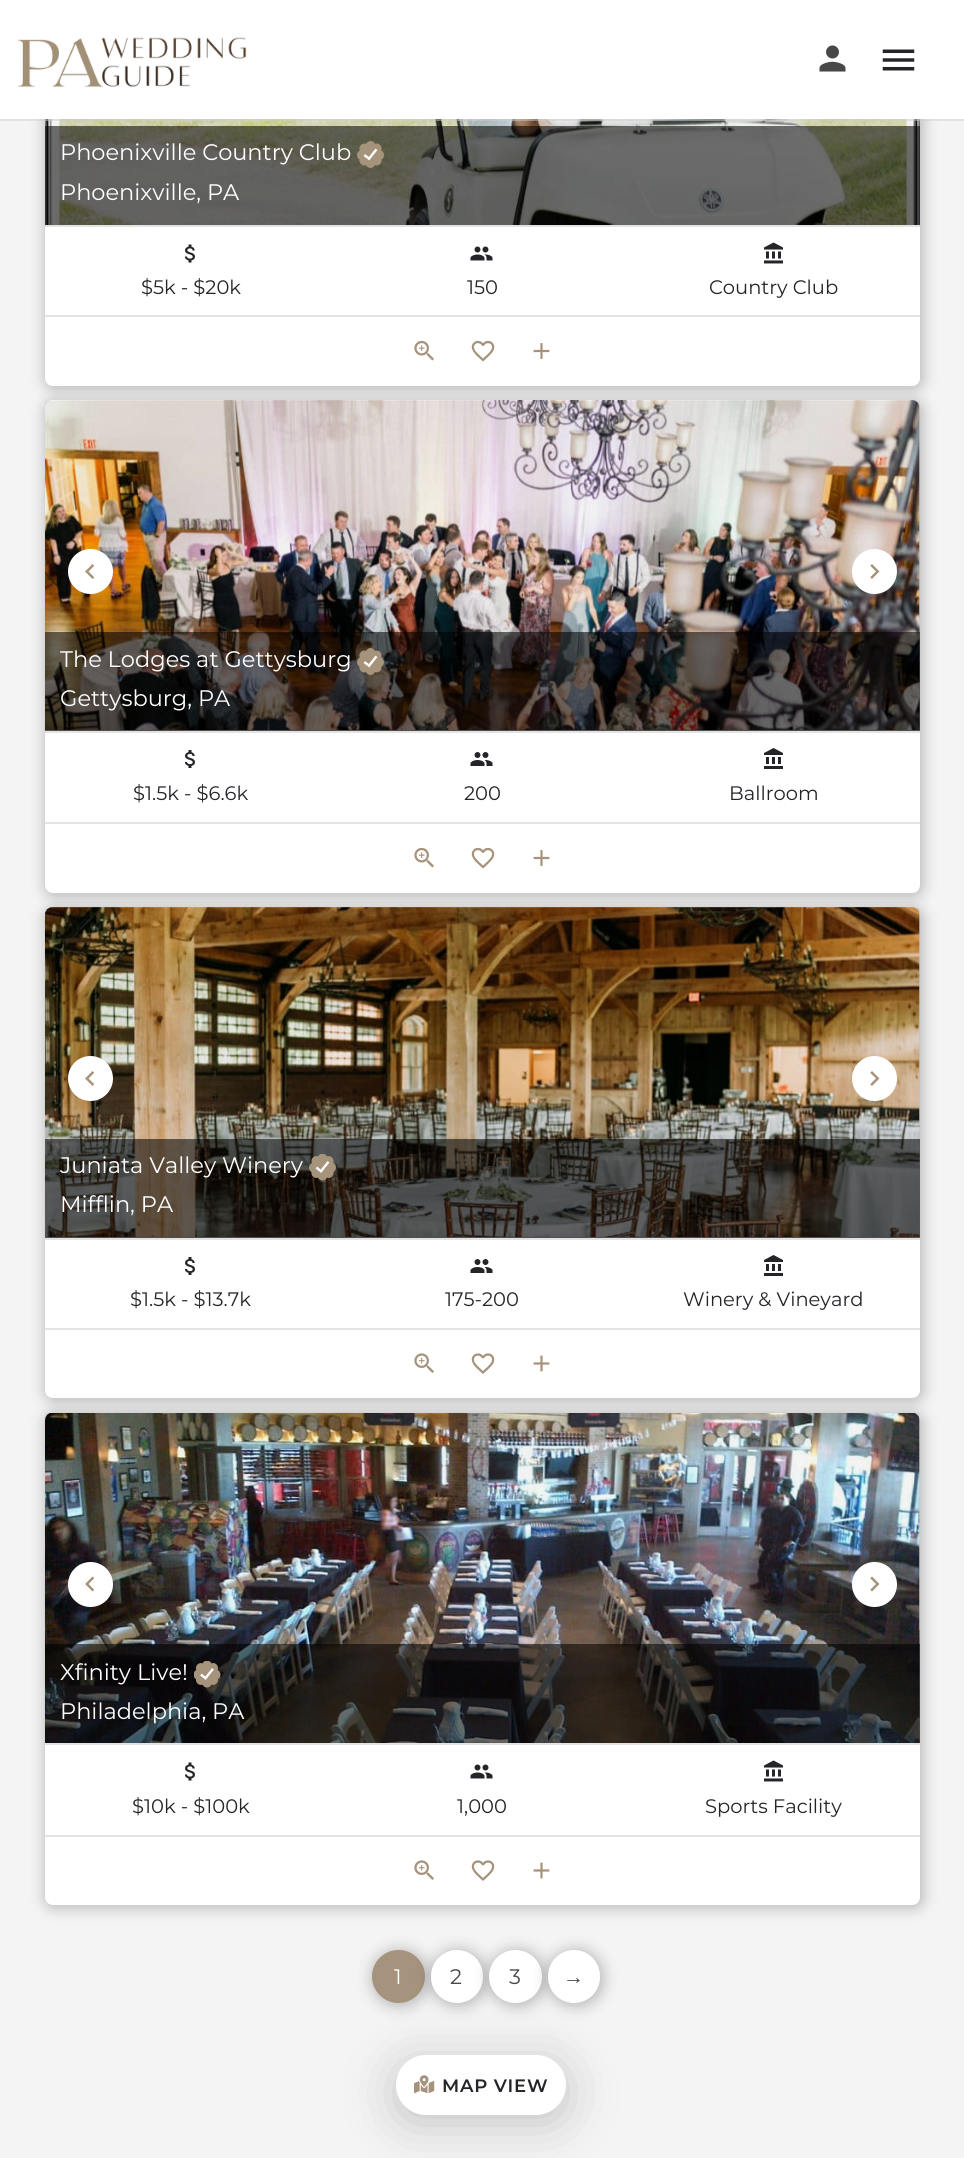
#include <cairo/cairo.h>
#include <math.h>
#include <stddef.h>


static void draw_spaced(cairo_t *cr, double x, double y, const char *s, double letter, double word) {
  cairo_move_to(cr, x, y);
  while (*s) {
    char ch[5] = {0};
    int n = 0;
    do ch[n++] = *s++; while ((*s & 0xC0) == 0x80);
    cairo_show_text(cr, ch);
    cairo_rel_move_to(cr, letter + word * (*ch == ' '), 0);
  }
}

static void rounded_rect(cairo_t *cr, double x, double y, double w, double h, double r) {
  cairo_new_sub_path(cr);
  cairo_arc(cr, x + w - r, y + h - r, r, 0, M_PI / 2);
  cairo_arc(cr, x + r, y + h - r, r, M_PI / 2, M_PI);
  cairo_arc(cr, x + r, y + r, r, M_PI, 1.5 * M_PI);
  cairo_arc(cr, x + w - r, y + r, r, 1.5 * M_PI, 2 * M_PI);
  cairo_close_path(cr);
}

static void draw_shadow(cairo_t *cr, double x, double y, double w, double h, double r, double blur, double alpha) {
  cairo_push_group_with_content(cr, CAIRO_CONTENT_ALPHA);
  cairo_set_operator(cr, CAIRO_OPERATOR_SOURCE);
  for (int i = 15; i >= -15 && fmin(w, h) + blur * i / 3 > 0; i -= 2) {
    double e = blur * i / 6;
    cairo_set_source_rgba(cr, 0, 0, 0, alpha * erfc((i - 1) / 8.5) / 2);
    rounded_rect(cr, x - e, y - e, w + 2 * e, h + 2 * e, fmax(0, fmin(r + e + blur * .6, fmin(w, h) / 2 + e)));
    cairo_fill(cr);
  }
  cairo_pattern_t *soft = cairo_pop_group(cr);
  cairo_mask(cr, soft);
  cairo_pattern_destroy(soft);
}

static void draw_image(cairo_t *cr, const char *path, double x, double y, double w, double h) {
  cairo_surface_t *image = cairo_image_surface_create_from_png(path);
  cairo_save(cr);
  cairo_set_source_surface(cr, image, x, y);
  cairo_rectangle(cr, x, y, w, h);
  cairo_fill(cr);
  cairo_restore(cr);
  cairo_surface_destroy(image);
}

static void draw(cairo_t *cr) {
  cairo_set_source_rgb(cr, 244 / 255.0, 244 / 255.0, 244 / 255.0);
  cairo_paint(cr);
  cairo_set_source_rgb(cr, 0, 0, 0);
  draw_shadow(cr, 45, -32, 878, 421, 9, 7.5, 0.25);
  draw_image(cr, "images/4.png", 45, 119, 875, 106);
  cairo_set_source_rgba(cr, 0, 0, 0, 0.04);
  cairo_rectangle(cr, 45, 119, 875, 106);
  cairo_fill(cr);
  cairo_set_source_rgba(cr, 204 / 255.0, 204 / 255.0, 204 / 255.0, 0.48);
  cairo_rectangle(cr, 0, 119, 964, 2);
  cairo_fill(cr);
  cairo_set_source_rgb(cr, 1, 1, 1);
  cairo_rectangle(cr, 0, 0, 964, 119);
  cairo_fill(cr);
  draw_image(cr, "images/1.png", 17, 37, 230, 51);
  draw_image(cr, "images/2.png", 882, 49, 33, 22);
  draw_image(cr, "images/3.png", 819, 45, 27, 27);
  cairo_set_source_rgba(cr, 0, 0, 0, 0.56);
  cairo_rectangle(cr, 45, 126, 875, 99);
  cairo_fill(cr);
  draw_image(cr, "images/5.png", 357, 141, 27, 27);
  cairo_set_source_rgb(cr, 1, 1, 1);
  cairo_rectangle(cr, 45, 227, 875, 88);
  cairo_fill(cr);
  cairo_set_source_rgb(cr, 227 / 255.0, 227 / 255.0, 227 / 255.0);
  cairo_rectangle(cr, 45, 225, 875, 2);
  cairo_fill(cr);
  draw_image(cr, "images/6.png", 184, 244, 11, 19);
  draw_image(cr, "images/7.png", 470, 246, 23, 15);
  draw_image(cr, "images/8.png", 764, 242, 19, 22);
  cairo_set_source_rgb(cr, 1, 1, 1);
  cairo_new_path(cr);
  cairo_move_to(cr, 45, 315);
  cairo_line_to(cr, 920, 315);
  cairo_line_to(cr, 920, 378);
  cairo_curve_to(cr, 920, 382.5, 916.5, 386, 912, 386);
  cairo_line_to(cr, 53, 386);
  cairo_curve_to(cr, 48.5, 386, 45, 382.5, 45, 378);
  cairo_close_path(cr);
  cairo_fill(cr);
  cairo_set_source_rgb(cr, 227 / 255.0, 227 / 255.0, 227 / 255.0);
  cairo_rectangle(cr, 45, 315, 875, 2);
  cairo_fill(cr);
  draw_image(cr, "images/9.png", 414, 340, 20, 21);
  draw_image(cr, "images/10.png", 471, 340, 24, 22);
  draw_image(cr, "images/11.png", 533, 343, 17, 16);
  cairo_set_source_rgb(cr, 0, 0, 0);
  draw_shadow(cr, 45, 401, 878, 495, 9, 7.5, 0.25);
  draw_image(cr, "images/14.png", 45, 400, 875, 330);
  cairo_set_source_rgba(cr, 0, 0, 0, 0.04);
  cairo_rectangle(cr, 45, 401, 875, 330);
  cairo_fill(cr);
  cairo_set_source_rgb(cr, 1, 1, 1);
  cairo_arc(cr, 90.5, 571.5, 22.5, 0, 2 * M_PI);
  cairo_fill(cr);
  draw_image(cr, "images/12.png", 85, 564, 10, 15);
  cairo_arc(cr, 874.5, 571.5, 22.5, 0, 2 * M_PI);
  cairo_fill(cr);
  draw_image(cr, "images/13.png", 870, 564, 10, 15);
  cairo_set_source_rgba(cr, 0, 0, 0, 0.56);
  cairo_rectangle(cr, 45, 632, 875, 99);
  cairo_fill(cr);
  draw_image(cr, "images/15.png", 357, 648, 27, 27);
  cairo_set_source_rgb(cr, 1, 1, 1);
  cairo_rectangle(cr, 45, 733, 875, 89);
  cairo_fill(cr);
  cairo_set_source_rgb(cr, 227 / 255.0, 227 / 255.0, 227 / 255.0);
  cairo_rectangle(cr, 45, 731, 875, 2);
  cairo_fill(cr);
  draw_image(cr, "images/16.png", 184, 750, 11, 18);
  draw_image(cr, "images/17.png", 470, 752, 23, 14);
  draw_image(cr, "images/18.png", 764, 748, 19, 21);
  cairo_set_source_rgb(cr, 1, 1, 1);
  cairo_new_path(cr);
  cairo_move_to(cr, 45, 822);
  cairo_line_to(cr, 920, 822);
  cairo_line_to(cr, 920, 885);
  cairo_curve_to(cr, 920, 889.5, 916.5, 893, 912, 893);
  cairo_line_to(cr, 53, 893);
  cairo_curve_to(cr, 48.5, 893, 45, 889.5, 45, 885);
  cairo_close_path(cr);
  cairo_fill(cr);
  cairo_set_source_rgb(cr, 227 / 255.0, 227 / 255.0, 227 / 255.0);
  cairo_rectangle(cr, 45, 822, 875, 2);
  cairo_fill(cr);
  draw_image(cr, "images/9.png", 414, 847, 20, 21);
  draw_image(cr, "images/10.png", 471, 847, 24, 22);
  draw_image(cr, "images/11.png", 533, 850, 17, 16);
  cairo_set_source_rgb(cr, 0, 0, 0);
  draw_shadow(cr, 45, 908, 878, 493, 9, 7.5, 0.25);
  draw_image(cr, "images/19.png", 45, 907, 875, 330);
  cairo_set_source_rgba(cr, 0, 0, 0, 0.04);
  cairo_rectangle(cr, 45, 908, 875, 330);
  cairo_fill(cr);
  cairo_set_source_rgb(cr, 1, 1, 1);
  cairo_arc(cr, 90.5, 1078.5, 22.5, 0, 2 * M_PI);
  cairo_fill(cr);
  draw_image(cr, "images/12.png", 85, 1071, 10, 15);
  cairo_arc(cr, 874.5, 1078.5, 22.5, 0, 2 * M_PI);
  cairo_fill(cr);
  draw_image(cr, "images/13.png", 870, 1071, 10, 15);
  cairo_set_source_rgba(cr, 0, 0, 0, 0.56);
  cairo_rectangle(cr, 45, 1139, 875, 99);
  cairo_fill(cr);
  draw_image(cr, "images/20.png", 309, 1154, 27, 27);
  cairo_set_source_rgb(cr, 1, 1, 1);
  cairo_rectangle(cr, 45, 1240, 875, 88);
  cairo_fill(cr);
  cairo_set_source_rgb(cr, 227 / 255.0, 227 / 255.0, 227 / 255.0);
  cairo_rectangle(cr, 45, 1238, 875, 2);
  cairo_fill(cr);
  draw_image(cr, "images/16.png", 184, 1257, 11, 18);
  draw_image(cr, "images/17.png", 470, 1259, 23, 14);
  draw_image(cr, "images/18.png", 764, 1255, 19, 21);
  cairo_set_source_rgb(cr, 1, 1, 1);
  cairo_new_path(cr);
  cairo_move_to(cr, 45, 1328);
  cairo_line_to(cr, 920, 1328);
  cairo_line_to(cr, 920, 1390);
  cairo_curve_to(cr, 920, 1394.5, 916.5, 1398, 912, 1398);
  cairo_line_to(cr, 53, 1398);
  cairo_curve_to(cr, 48.5, 1398, 45, 1394.5, 45, 1390);
  cairo_close_path(cr);
  cairo_fill(cr);
  cairo_set_source_rgb(cr, 227 / 255.0, 227 / 255.0, 227 / 255.0);
  cairo_rectangle(cr, 45, 1328, 875, 2);
  cairo_fill(cr);
  draw_image(cr, "images/21.png", 414, 1353, 20, 20);
  draw_image(cr, "images/22.png", 471, 1353, 24, 21);
  draw_image(cr, "images/23.png", 533, 1355, 17, 17);
  cairo_set_source_rgb(cr, 0, 0, 0);
  draw_shadow(cr, 45, 1413, 878, 495, 9, 7.5, 0.25);
  draw_image(cr, "images/26.png", 45, 1413, 875, 330);
  cairo_set_source_rgba(cr, 0, 0, 0, 0.04);
  cairo_rectangle(cr, 45, 1413, 875, 330);
  cairo_fill(cr);
  cairo_set_source_rgb(cr, 1, 1, 1);
  cairo_arc(cr, 90.5, 1584.5, 22.5, 0, 2 * M_PI);
  cairo_fill(cr);
  draw_image(cr, "images/24.png", 85, 1576, 10, 16);
  cairo_arc(cr, 874.5, 1584.5, 22.5, 0, 2 * M_PI);
  cairo_fill(cr);
  draw_image(cr, "images/25.png", 870, 1576, 10, 16);
  cairo_set_source_rgba(cr, 0, 0, 0, 0.56);
  cairo_rectangle(cr, 45, 1644, 875, 99);
  cairo_fill(cr);
  draw_image(cr, "images/27.png", 194, 1661, 27, 27);
  cairo_set_source_rgb(cr, 1, 1, 1);
  cairo_rectangle(cr, 45, 1745, 875, 90);
  cairo_fill(cr);
  cairo_set_source_rgb(cr, 227 / 255.0, 227 / 255.0, 227 / 255.0);
  cairo_rectangle(cr, 45, 1743, 875, 2);
  cairo_fill(cr);
  draw_image(cr, "images/6.png", 184, 1762, 11, 19);
  draw_image(cr, "images/7.png", 470, 1764, 23, 15);
  draw_image(cr, "images/8.png", 764, 1760, 19, 22);
  cairo_set_source_rgb(cr, 1, 1, 1);
  cairo_new_path(cr);
  cairo_move_to(cr, 45, 1835);
  cairo_line_to(cr, 920, 1835);
  cairo_line_to(cr, 920, 1897);
  cairo_curve_to(cr, 920, 1901.5, 916.5, 1905, 912, 1905);
  cairo_line_to(cr, 53, 1905);
  cairo_curve_to(cr, 48.5, 1905, 45, 1901.5, 45, 1897);
  cairo_close_path(cr);
  cairo_fill(cr);
  cairo_set_source_rgb(cr, 227 / 255.0, 227 / 255.0, 227 / 255.0);
  cairo_rectangle(cr, 45, 1835, 875, 2);
  cairo_fill(cr);
  draw_image(cr, "images/21.png", 414, 1860, 20, 20);
  draw_image(cr, "images/22.png", 471, 1860, 24, 21);
  draw_image(cr, "images/23.png", 533, 1862, 17, 17);
  cairo_set_source_rgb(cr, 0, 0, 0);
  draw_shadow(cr, 372, 1950, 56, 56, 28, 7.5, 0.25);
  cairo_set_source_rgb(cr, 166 / 255.0, 147 / 255.0, 125 / 255.0);
  cairo_arc(cr, 398.5, 1976.5, 26.5, 0, 2 * M_PI);
  cairo_fill(cr);
  cairo_set_source_rgb(cr, 0, 0, 0);
  draw_shadow(cr, 431, 1950, 55, 56, 27.5, 7.5, 0.25);
  cairo_set_source_rgb(cr, 1, 1, 1);
  rounded_rect(cr, 431, 1950, 52, 53, 26);
  cairo_fill(cr);
  cairo_set_source_rgb(cr, 0, 0, 0);
  draw_shadow(cr, 489, 1950, 56, 56, 28, 7.5, 0.25);
  cairo_set_source_rgb(cr, 1, 1, 1);
  cairo_arc(cr, 515.5, 1976.5, 26.5, 0, 2 * M_PI);
  cairo_fill(cr);
  cairo_set_source_rgb(cr, 0, 0, 0);
  draw_shadow(cr, 548, 1950, 55, 56, 27.5, 7.5, 0.25);
  cairo_set_source_rgb(cr, 1, 1, 1);
  rounded_rect(cr, 548, 1950, 52, 53, 26);
  cairo_fill(cr);
  cairo_set_source_rgb(cr, 0, 0, 0);
  draw_shadow(cr, 396, 2063, 170, 60, 30, 25, 0.2);
  cairo_set_source_rgb(cr, 1, 1, 1);
  rounded_rect(cr, 396, 2055, 170, 60, 30);
  cairo_fill(cr);
  draw_image(cr, "images/28.png", 414, 2075, 21, 19);
  cairo_select_font_face(cr, "Montserrat", CAIRO_FONT_SLANT_NORMAL, CAIRO_FONT_WEIGHT_NORMAL);
  cairo_set_font_size(cr, 22.5);
  cairo_move_to(cr, 60, 160);
  cairo_show_text(cr, "Phoenixville Country Club");
  cairo_move_to(cr, 60, 200);
  cairo_show_text(cr, "Phoenixville, PA");
  cairo_set_font_size(cr, 19.5);
  cairo_set_source_rgb(cr, 36 / 255.0, 36 / 255.0, 41 / 255.0);
  cairo_move_to(cr, 141, 294);
  cairo_show_text(cr, "$5k - $20k");
  cairo_move_to(cr, 467, 294);
  cairo_show_text(cr, "150");
  cairo_move_to(cr, 709, 294);
  cairo_show_text(cr, "Country Club");
  cairo_set_font_size(cr, 22.5);
  cairo_set_source_rgb(cr, 1, 1, 1);
  cairo_move_to(cr, 60, 667);
  cairo_show_text(cr, "The Lodges at Gettysburg");
  cairo_move_to(cr, 60, 706);
  cairo_show_text(cr, "Gettysburg, PA");
  cairo_set_font_size(cr, 19.5);
  cairo_set_source_rgb(cr, 36 / 255.0, 36 / 255.0, 41 / 255.0);
  cairo_move_to(cr, 133, 800);
  cairo_show_text(cr, "$1.5k - $6.6k");
  cairo_move_to(cr, 464, 800);
  cairo_show_text(cr, "200");
  cairo_move_to(cr, 729, 800);
  cairo_show_text(cr, "Ballroom");
  cairo_set_font_size(cr, 22.5);
  cairo_set_source_rgb(cr, 1, 1, 1);
  cairo_move_to(cr, 60, 1173);
  cairo_show_text(cr, "Juniata Valley Winery");
  cairo_move_to(cr, 60, 1212);
  cairo_show_text(cr, "Mifflin, PA");
  cairo_set_font_size(cr, 19.5);
  cairo_set_source_rgb(cr, 36 / 255.0, 36 / 255.0, 41 / 255.0);
  cairo_move_to(cr, 130, 1306);
  cairo_show_text(cr, "$1.5k - $13.7k");
  cairo_move_to(cr, 445, 1306);
  cairo_show_text(cr, "175-200");
  cairo_move_to(cr, 683, 1306);
  cairo_show_text(cr, "Winery & Vineyard");
  cairo_set_font_size(cr, 22.5);
  cairo_set_source_rgb(cr, 1, 1, 1);
  cairo_move_to(cr, 60, 1680);
  cairo_show_text(cr, "Xfinity Live!");
  cairo_move_to(cr, 60, 1719);
  cairo_show_text(cr, "Philadelphia, PA");
  cairo_set_font_size(cr, 19.5);
  cairo_set_source_rgb(cr, 36 / 255.0, 36 / 255.0, 41 / 255.0);
  cairo_move_to(cr, 132, 1813);
  cairo_show_text(cr, "$10k - $100k");
  cairo_move_to(cr, 457, 1813);
  cairo_show_text(cr, "1,000");
  cairo_move_to(cr, 705, 1813);
  cairo_show_text(cr, "Sports Facility");
  cairo_set_font_size(cr, 21);
  cairo_set_source_rgb(cr, 1, 1, 1);
  cairo_move_to(cr, 394, 1984);
  cairo_show_text(cr, "1");
  cairo_set_source_rgb(cr, 72 / 255.0, 72 / 255.0, 72 / 255.0);
  cairo_move_to(cr, 450, 1984);
  cairo_show_text(cr, "2");
  cairo_move_to(cr, 509, 1984);
  cairo_show_text(cr, "3");
  cairo_select_font_face(cr, "Liberation Sans", CAIRO_FONT_SLANT_NORMAL, CAIRO_FONT_WEIGHT_NORMAL);
  cairo_move_to(cr, 563, 1984);
  cairo_show_text(cr, "→");
  cairo_select_font_face(cr, "Montserrat SemiBold", CAIRO_FONT_SLANT_NORMAL, CAIRO_FONT_WEIGHT_NORMAL);
  cairo_set_font_size(cr, 18);
  cairo_set_source_rgb(cr, 36 / 255.0, 36 / 255.0, 41 / 255.0);
  draw_spaced(cr, 442, 2092, "MAP VIEW", 0.75, 0);
}

int main(void) {
  cairo_surface_t *surface = cairo_image_surface_create(CAIRO_FORMAT_RGB24, 964, 2158);
  cairo_t *cr = cairo_create(surface);
  cairo_font_options_t *options = cairo_font_options_create();
  cairo_font_options_set_hint_metrics(options, CAIRO_HINT_METRICS_OFF);
  cairo_font_options_set_hint_style(options, CAIRO_HINT_STYLE_NONE);
  cairo_set_font_options(cr, options);
  cairo_set_miter_limit(cr, 4);
  draw(cr);
  cairo_surface_write_to_png(surface, "out.png");
  cairo_font_options_destroy(options);
  cairo_destroy(cr);
  cairo_surface_destroy(surface);
  return 0;
}
